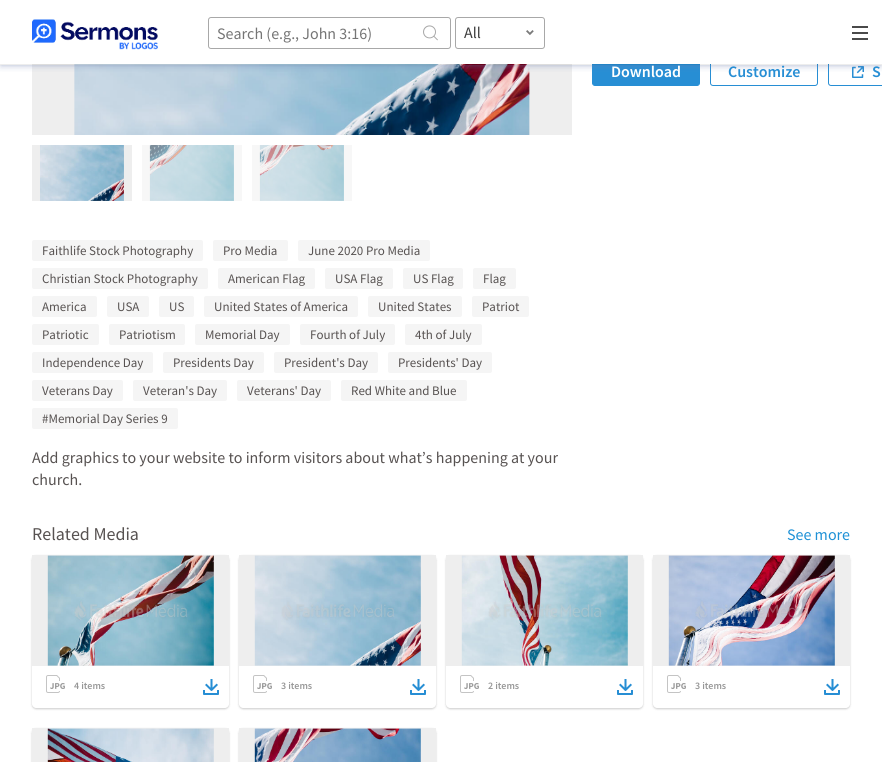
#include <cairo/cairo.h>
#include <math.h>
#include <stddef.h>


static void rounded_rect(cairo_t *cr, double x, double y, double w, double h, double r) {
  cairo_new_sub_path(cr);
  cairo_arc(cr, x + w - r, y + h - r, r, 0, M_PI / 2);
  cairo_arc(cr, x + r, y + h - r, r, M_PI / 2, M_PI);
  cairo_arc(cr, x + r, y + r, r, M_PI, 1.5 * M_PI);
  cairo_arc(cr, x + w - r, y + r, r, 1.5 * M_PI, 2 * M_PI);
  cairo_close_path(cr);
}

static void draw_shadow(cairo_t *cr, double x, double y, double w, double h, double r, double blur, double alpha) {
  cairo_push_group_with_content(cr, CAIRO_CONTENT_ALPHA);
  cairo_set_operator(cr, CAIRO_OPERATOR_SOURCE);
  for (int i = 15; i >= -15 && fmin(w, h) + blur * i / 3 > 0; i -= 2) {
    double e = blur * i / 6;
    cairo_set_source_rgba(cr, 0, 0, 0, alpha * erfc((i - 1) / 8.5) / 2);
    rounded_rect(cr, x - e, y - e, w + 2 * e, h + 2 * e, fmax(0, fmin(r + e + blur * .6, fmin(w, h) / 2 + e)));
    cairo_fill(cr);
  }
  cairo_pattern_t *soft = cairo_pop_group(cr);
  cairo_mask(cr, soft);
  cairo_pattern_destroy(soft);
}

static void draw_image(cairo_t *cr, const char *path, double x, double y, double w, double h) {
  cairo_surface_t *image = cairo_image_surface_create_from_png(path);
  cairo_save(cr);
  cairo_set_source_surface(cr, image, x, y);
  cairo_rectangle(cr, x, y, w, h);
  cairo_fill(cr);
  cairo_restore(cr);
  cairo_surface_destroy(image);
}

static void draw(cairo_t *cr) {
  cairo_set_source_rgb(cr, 1, 1, 1);
  cairo_paint(cr);
  cairo_set_source_rgb(cr, 39 / 255.0, 142 / 255.0, 212 / 255.0);
  rounded_rect(cr, 592.5, 56.5, 107, 29, 2.5);
  cairo_fill_preserve(cr);
  cairo_set_line_width(cr, 1);
  cairo_stroke(cr);
  rounded_rect(cr, 710.5, 56.5, 107, 29, 2.5);
  cairo_stroke(cr);
  rounded_rect(cr, 828.5, 56.5, 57, 29, 2.5);
  cairo_stroke(cr);
  draw_image(cr, "images/5.png", 852, 66, 12, 12);
  cairo_set_source_rgb(cr, 238 / 255.0, 238 / 255.0, 238 / 255.0);
  cairo_rectangle(cr, 32, 64, 540, 71);
  cairo_fill(cr);
  draw_image(cr, "images/6.png", 74, 64, 456, 71);
  cairo_set_source_rgb(cr, 0, 0, 0);
  draw_shadow(cr, 0, 1, 882, 64, 0, 1, 0.1);
  cairo_set_source_rgb(cr, 1, 1, 1);
  cairo_rectangle(cr, 0, 0, 882, 64);
  cairo_fill(cr);
  cairo_save(cr);
  cairo_rectangle(cr, 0, 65, 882, 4);
  cairo_clip(cr);
  cairo_set_source_rgb(cr, 110 / 255.0, 131 / 255.0, 183 / 255.0);
  draw_shadow(cr, 1, 3, 880, 63, 0, 2, 0.2);
  cairo_restore(cr);
  cairo_save(cr);
  cairo_rectangle(cr, 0, 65, 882, 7);
  cairo_clip(cr);
  cairo_set_source_rgb(cr, 110 / 255.0, 131 / 255.0, 183 / 255.0);
  draw_shadow(cr, 0, 4, 882, 65, 0, 2.5, 0.14);
  cairo_restore(cr);
  draw_image(cr, "images/1.png", 32, 19, 126, 31);
  rounded_rect(cr, 208.5, 17.5, 242, 31, 2.5);
  cairo_set_source_rgb(cr, 168 / 255.0, 168 / 255.0, 168 / 255.0);
  cairo_stroke(cr);
  draw_image(cr, "images/2.png", 423, 25, 15, 16);
  rounded_rect(cr, 455.5, 17.5, 89, 31, 2.5);
  cairo_stroke(cr);
  draw_image(cr, "images/3.png", 526, 30, 8, 6);
  draw_image(cr, "images/4.png", 852, 26, 16, 14);
  cairo_set_source_rgb(cr, 238 / 255.0, 238 / 255.0, 238 / 255.0);
  cairo_rectangle(cr, 32, 145, 100, 56);
  cairo_fill(cr);
  draw_image(cr, "images/7.png", 40, 145, 84, 56);
  cairo_set_source_rgb(cr, 247 / 255.0, 247 / 255.0, 247 / 255.0);
  cairo_rectangle(cr, 142, 145, 100, 56);
  cairo_fill(cr);
  draw_image(cr, "images/8.png", 149, 145, 85, 56);
  cairo_rectangle(cr, 252, 145, 100, 56);
  cairo_fill(cr);
  draw_image(cr, "images/9.png", 259, 145, 85, 56);
  cairo_set_source_rgb(cr, 245 / 255.0, 245 / 255.0, 245 / 255.0);
  rounded_rect(cr, 32, 240, 171, 21, 2);
  cairo_fill(cr);
  rounded_rect(cr, 213, 240, 75, 21, 2);
  cairo_fill(cr);
  rounded_rect(cr, 298, 240, 132, 21, 2);
  cairo_fill(cr);
  rounded_rect(cr, 32, 268, 176, 21, 2);
  cairo_fill(cr);
  rounded_rect(cr, 218, 268, 97, 21, 2);
  cairo_fill(cr);
  rounded_rect(cr, 325, 268, 68, 21, 2);
  cairo_fill(cr);
  rounded_rect(cr, 403, 268, 60, 21, 2);
  cairo_fill(cr);
  rounded_rect(cr, 473, 268, 43, 21, 2);
  cairo_fill(cr);
  rounded_rect(cr, 32, 296, 65, 21, 2);
  cairo_fill(cr);
  rounded_rect(cr, 107, 296, 42, 21, 2);
  cairo_fill(cr);
  rounded_rect(cr, 159, 296, 35, 21, 2);
  cairo_fill(cr);
  rounded_rect(cr, 204, 296, 154, 21, 2);
  cairo_fill(cr);
  rounded_rect(cr, 368, 296, 94, 21, 2);
  cairo_fill(cr);
  rounded_rect(cr, 472, 296, 57, 21, 2);
  cairo_fill(cr);
  rounded_rect(cr, 32, 324, 67, 21, 2);
  cairo_fill(cr);
  rounded_rect(cr, 109, 324, 76, 21, 2);
  cairo_fill(cr);
  rounded_rect(cr, 195, 324, 95, 21, 2);
  cairo_fill(cr);
  rounded_rect(cr, 300, 324, 95, 21, 2);
  cairo_fill(cr);
  rounded_rect(cr, 405, 324, 77, 21, 2);
  cairo_fill(cr);
  rounded_rect(cr, 32, 352, 121, 21, 2);
  cairo_fill(cr);
  rounded_rect(cr, 163, 352, 101, 21, 2);
  cairo_fill(cr);
  rounded_rect(cr, 274, 352, 104, 21, 2);
  cairo_fill(cr);
  rounded_rect(cr, 388, 352, 104, 21, 2);
  cairo_fill(cr);
  rounded_rect(cr, 32, 380, 91, 21, 2);
  cairo_fill(cr);
  rounded_rect(cr, 133, 380, 94, 21, 2);
  cairo_fill(cr);
  rounded_rect(cr, 237, 380, 94, 21, 2);
  cairo_fill(cr);
  rounded_rect(cr, 341, 380, 126, 21, 2);
  cairo_fill(cr);
  rounded_rect(cr, 32, 408, 146, 21, 2);
  cairo_fill(cr);
  cairo_set_source_rgb(cr, 0, 0, 0);
  draw_shadow(cr, 32, 556, 197, 153, 4, 1, 0.2);
  cairo_set_source_rgb(cr, 1, 1, 1);
  cairo_new_path(cr);
  cairo_move_to(cr, 32, 555);
  cairo_line_to(cr, 229, 555);
  cairo_line_to(cr, 229, 704);
  cairo_curve_to(cr, 229, 706, 227, 708, 225, 708);
  cairo_line_to(cr, 36, 708);
  cairo_curve_to(cr, 34, 708, 32, 706, 32, 704);
  cairo_close_path(cr);
  cairo_fill(cr);
  cairo_set_source_rgb(cr, 238 / 255.0, 238 / 255.0, 238 / 255.0);
  cairo_rectangle(cr, 32, 555, 197, 111);
  cairo_fill(cr);
  draw_image(cr, "images/10.png", 47, 555, 167, 111);
  draw_image(cr, "images/11.png", 46, 675, 19, 18);
  draw_image(cr, "images/12.png", 203, 679, 16, 16);
  cairo_set_source_rgb(cr, 0, 0, 0);
  draw_shadow(cr, 239, 556, 197, 153, 4, 1, 0.2);
  cairo_set_source_rgb(cr, 1, 1, 1);
  cairo_new_path(cr);
  cairo_move_to(cr, 239, 555);
  cairo_line_to(cr, 436, 555);
  cairo_line_to(cr, 436, 704);
  cairo_curve_to(cr, 436, 706, 434, 708, 432, 708);
  cairo_line_to(cr, 243, 708);
  cairo_curve_to(cr, 241, 708, 239, 706, 239, 704);
  cairo_close_path(cr);
  cairo_fill(cr);
  cairo_set_source_rgb(cr, 238 / 255.0, 238 / 255.0, 238 / 255.0);
  cairo_rectangle(cr, 239, 555, 197, 111);
  cairo_fill(cr);
  draw_image(cr, "images/13.png", 254, 555, 167, 111);
  draw_image(cr, "images/11.png", 253, 675, 19, 18);
  draw_image(cr, "images/12.png", 410, 679, 16, 16);
  cairo_set_source_rgb(cr, 0, 0, 0);
  draw_shadow(cr, 446, 556, 197, 153, 4, 1, 0.2);
  cairo_set_source_rgb(cr, 1, 1, 1);
  cairo_new_path(cr);
  cairo_move_to(cr, 446, 555);
  cairo_line_to(cr, 643, 555);
  cairo_line_to(cr, 643, 704);
  cairo_curve_to(cr, 643, 706, 641, 708, 639, 708);
  cairo_line_to(cr, 450, 708);
  cairo_curve_to(cr, 448, 708, 446, 706, 446, 704);
  cairo_close_path(cr);
  cairo_fill(cr);
  cairo_set_source_rgb(cr, 238 / 255.0, 238 / 255.0, 238 / 255.0);
  cairo_rectangle(cr, 446, 555, 197, 111);
  cairo_fill(cr);
  draw_image(cr, "images/14.png", 461, 555, 167, 111);
  draw_image(cr, "images/11.png", 460, 675, 19, 18);
  draw_image(cr, "images/12.png", 617, 679, 16, 16);
  cairo_set_source_rgb(cr, 0, 0, 0);
  draw_shadow(cr, 653, 556, 197, 153, 4, 1, 0.2);
  cairo_set_source_rgb(cr, 1, 1, 1);
  cairo_new_path(cr);
  cairo_move_to(cr, 653, 555);
  cairo_line_to(cr, 850, 555);
  cairo_line_to(cr, 850, 704);
  cairo_curve_to(cr, 850, 706, 848, 708, 846, 708);
  cairo_line_to(cr, 657, 708);
  cairo_curve_to(cr, 655, 708, 653, 706, 653, 704);
  cairo_close_path(cr);
  cairo_fill(cr);
  cairo_set_source_rgb(cr, 238 / 255.0, 238 / 255.0, 238 / 255.0);
  cairo_rectangle(cr, 653, 555, 197, 111);
  cairo_fill(cr);
  draw_image(cr, "images/15.png", 668, 555, 167, 111);
  draw_image(cr, "images/11.png", 667, 675, 19, 18);
  draw_image(cr, "images/12.png", 824, 679, 16, 16);
  cairo_set_source_rgb(cr, 0, 0, 0);
  draw_shadow(cr, 32, 729, 197, 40, 4, 1, 0.2);
  cairo_set_source_rgb(cr, 238 / 255.0, 238 / 255.0, 238 / 255.0);
  cairo_rectangle(cr, 32, 728, 197, 34);
  cairo_fill(cr);
  draw_image(cr, "images/16.png", 47, 728, 167, 34);
  cairo_set_source_rgb(cr, 0, 0, 0);
  draw_shadow(cr, 239, 729, 197, 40, 4, 1, 0.2);
  cairo_set_source_rgb(cr, 238 / 255.0, 238 / 255.0, 238 / 255.0);
  cairo_rectangle(cr, 239, 728, 197, 34);
  cairo_fill(cr);
  draw_image(cr, "images/17.png", 254, 728, 167, 34);
  cairo_select_font_face(cr, "Source Sans Pro", CAIRO_FONT_SLANT_NORMAL, CAIRO_FONT_WEIGHT_NORMAL);
  cairo_set_font_size(cr, 16);
  cairo_set_source_rgb(cr, 117 / 255.0, 117 / 255.0, 117 / 255.0);
  cairo_move_to(cr, 217, 39);
  cairo_show_text(cr, "Search (e.g., John 3:16)");
  cairo_set_source_rgb(cr, 61 / 255.0, 61 / 255.0, 61 / 255.0);
  cairo_move_to(cr, 464, 38);
  cairo_show_text(cr, "All");
  cairo_select_font_face(cr, "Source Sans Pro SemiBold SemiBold", CAIRO_FONT_SLANT_NORMAL, CAIRO_FONT_WEIGHT_NORMAL);
  cairo_set_source_rgb(cr, 1, 1, 1);
  cairo_move_to(cr, 611, 77);
  cairo_show_text(cr, "Download");
  cairo_set_source_rgb(cr, 39 / 255.0, 142 / 255.0, 212 / 255.0);
  cairo_move_to(cr, 728, 77);
  cairo_show_text(cr, "Customize");
  cairo_move_to(cr, 872, 77);
  cairo_show_text(cr, "S");
  cairo_select_font_face(cr, "Source Sans Pro", CAIRO_FONT_SLANT_NORMAL, CAIRO_FONT_WEIGHT_NORMAL);
  cairo_set_font_size(cr, 13);
  cairo_set_source_rgb(cr, 87 / 255.0, 82 / 255.0, 81 / 255.0);
  cairo_move_to(cr, 42, 255);
  cairo_show_text(cr, "Faithlife Stock Photography");
  cairo_move_to(cr, 223, 255);
  cairo_show_text(cr, "Pro Media");
  cairo_move_to(cr, 308, 255);
  cairo_show_text(cr, "June 2020 Pro Media");
  cairo_move_to(cr, 42, 283);
  cairo_show_text(cr, "Christian Stock Photography");
  cairo_move_to(cr, 228, 283);
  cairo_show_text(cr, "American Flag");
  cairo_move_to(cr, 335, 283);
  cairo_show_text(cr, "USA Flag");
  cairo_move_to(cr, 413, 283);
  cairo_show_text(cr, "US Flag");
  cairo_move_to(cr, 483, 283);
  cairo_show_text(cr, "Flag");
  cairo_move_to(cr, 42, 311);
  cairo_show_text(cr, "America");
  cairo_move_to(cr, 117, 311);
  cairo_show_text(cr, "USA");
  cairo_move_to(cr, 169, 311);
  cairo_show_text(cr, "US");
  cairo_move_to(cr, 214, 311);
  cairo_show_text(cr, "United States of America");
  cairo_move_to(cr, 378, 311);
  cairo_show_text(cr, "United States");
  cairo_move_to(cr, 482, 311);
  cairo_show_text(cr, "Patriot");
  cairo_move_to(cr, 42, 339);
  cairo_show_text(cr, "Patriotic");
  cairo_move_to(cr, 119, 339);
  cairo_show_text(cr, "Patriotism");
  cairo_move_to(cr, 205, 339);
  cairo_show_text(cr, "Memorial Day");
  cairo_move_to(cr, 310, 339);
  cairo_show_text(cr, "Fourth of July");
  cairo_move_to(cr, 415, 339);
  cairo_show_text(cr, "4th of July");
  cairo_move_to(cr, 42, 367);
  cairo_show_text(cr, "Independence Day");
  cairo_move_to(cr, 173, 367);
  cairo_show_text(cr, "Presidents Day");
  cairo_move_to(cr, 284, 367);
  cairo_show_text(cr, "President's Day");
  cairo_move_to(cr, 398, 367);
  cairo_show_text(cr, "Presidents' Day");
  cairo_move_to(cr, 42, 395);
  cairo_show_text(cr, "Veterans Day");
  cairo_move_to(cr, 143, 395);
  cairo_show_text(cr, "Veteran's Day");
  cairo_move_to(cr, 247, 395);
  cairo_show_text(cr, "Veterans' Day");
  cairo_move_to(cr, 351, 395);
  cairo_show_text(cr, "Red White and Blue");
  cairo_move_to(cr, 42, 423);
  cairo_show_text(cr, "#Memorial Day Series 9");
  cairo_set_font_size(cr, 16);
  cairo_move_to(cr, 32, 463);
  cairo_show_text(cr, "Add graphics to your website to inform visitors about what’s happening at your");
  cairo_move_to(cr, 32, 485);
  cairo_show_text(cr, "church.");
  cairo_set_font_size(cr, 18);
  cairo_move_to(cr, 32, 540);
  cairo_show_text(cr, "Related Media");
  cairo_set_font_size(cr, 16);
  cairo_set_source_rgb(cr, 30 / 255.0, 145 / 255.0, 214 / 255.0);
  cairo_move_to(cr, 787, 540);
  cairo_show_text(cr, "See more");
  cairo_select_font_face(cr, "Source Sans Pro SemiBold SemiBold", CAIRO_FONT_SLANT_NORMAL, CAIRO_FONT_WEIGHT_NORMAL);
  cairo_set_font_size(cr, 10);
  cairo_set_source_rgb(cr, 151 / 255.0, 151 / 255.0, 151 / 255.0);
  cairo_move_to(cr, 74, 689);
  cairo_show_text(cr, "4 items");
  cairo_move_to(cr, 281, 689);
  cairo_show_text(cr, "3 items");
  cairo_move_to(cr, 488, 689);
  cairo_show_text(cr, "2 items");
  cairo_move_to(cr, 695, 689);
  cairo_show_text(cr, "3 items");
}

int main(void) {
  cairo_surface_t *surface = cairo_image_surface_create(CAIRO_FORMAT_RGB24, 882, 762);
  cairo_t *cr = cairo_create(surface);
  cairo_font_options_t *options = cairo_font_options_create();
  cairo_font_options_set_hint_metrics(options, CAIRO_HINT_METRICS_OFF);
  cairo_font_options_set_hint_style(options, CAIRO_HINT_STYLE_NONE);
  cairo_set_font_options(cr, options);
  cairo_set_miter_limit(cr, 4);
  draw(cr);
  cairo_surface_write_to_png(surface, "out.png");
  cairo_font_options_destroy(options);
  cairo_destroy(cr);
  cairo_surface_destroy(surface);
  return 0;
}
